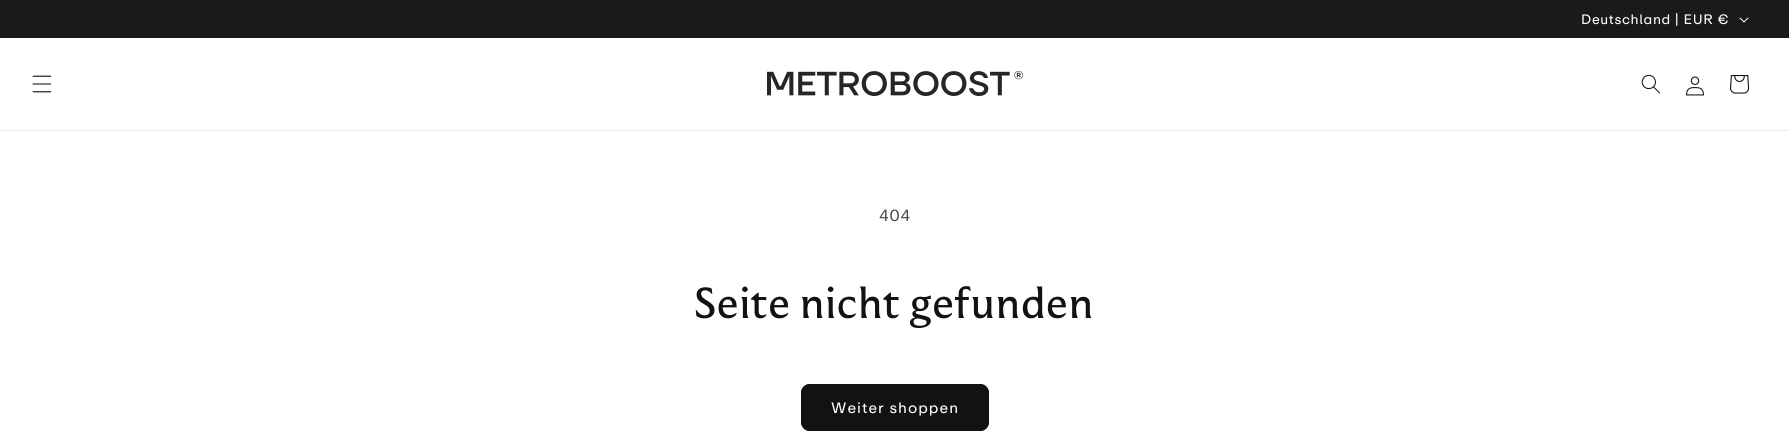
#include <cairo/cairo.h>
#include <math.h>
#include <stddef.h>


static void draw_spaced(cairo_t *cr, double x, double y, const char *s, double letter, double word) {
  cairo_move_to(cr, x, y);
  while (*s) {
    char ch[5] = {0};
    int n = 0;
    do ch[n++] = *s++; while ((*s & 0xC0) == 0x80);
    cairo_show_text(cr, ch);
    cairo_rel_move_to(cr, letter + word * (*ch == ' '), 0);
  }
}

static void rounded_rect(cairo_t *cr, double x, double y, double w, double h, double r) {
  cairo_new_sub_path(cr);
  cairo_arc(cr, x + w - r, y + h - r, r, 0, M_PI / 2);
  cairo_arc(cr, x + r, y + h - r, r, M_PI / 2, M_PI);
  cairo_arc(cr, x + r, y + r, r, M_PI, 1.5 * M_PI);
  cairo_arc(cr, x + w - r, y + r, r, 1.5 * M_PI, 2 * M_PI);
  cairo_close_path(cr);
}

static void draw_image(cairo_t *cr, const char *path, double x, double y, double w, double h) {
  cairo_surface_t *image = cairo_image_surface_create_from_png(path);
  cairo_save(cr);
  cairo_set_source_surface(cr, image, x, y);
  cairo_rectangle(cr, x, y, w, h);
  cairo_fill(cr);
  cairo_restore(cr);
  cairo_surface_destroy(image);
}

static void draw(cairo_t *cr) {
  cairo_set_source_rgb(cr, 1, 1, 1);
  cairo_paint(cr);
  cairo_set_source_rgb(cr, 26 / 255.0, 26 / 255.0, 26 / 255.0);
  cairo_rectangle(cr, 0, 0, 1789, 38);
  cairo_fill(cr);
  draw_image(cr, "images/1.png", 1739, 17, 10, 6);
  cairo_set_source_rgb(cr, 236 / 255.0, 236 / 255.0, 236 / 255.0);
  cairo_rectangle(cr, 0, 130, 1789, 1);
  cairo_fill(cr);
  draw_image(cr, "images/2.png", 32, 75, 20, 18);
  draw_image(cr, "images/3.png", 767, 71, 256, 25);
  draw_image(cr, "images/4.png", 1641, 74, 19, 20);
  draw_image(cr, "images/5.png", 1686, 76, 18, 20);
  draw_image(cr, "images/6.png", 1730, 75, 20, 19);
  cairo_set_source_rgb(cr, 18 / 255.0, 18 / 255.0, 18 / 255.0);
  rounded_rect(cr, 801, 384, 188, 47, 9);
  cairo_fill(cr);
  rounded_rect(cr, 801.5, 384.5, 187, 46, 8.5);
  cairo_set_line_width(cr, 1);
  cairo_stroke(cr);
  cairo_select_font_face(cr, "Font", CAIRO_FONT_SLANT_NORMAL, CAIRO_FONT_WEIGHT_NORMAL);
  cairo_set_font_size(cr, 13.6);
  cairo_set_source_rgb(cr, 1, 1, 1);
  draw_spaced(cr, 1581, 24, "Deutschland | EUR €", 0.6, 0);
  cairo_set_font_size(cr, 16);
  cairo_set_source_rgb(cr, 77 / 255.0, 77 / 255.0, 77 / 255.0);
  draw_spaced(cr, 879, 221, "404", 0.6, 0);
  cairo_select_font_face(cr, "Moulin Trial", CAIRO_FONT_SLANT_NORMAL, CAIRO_FONT_WEIGHT_NORMAL);
  cairo_set_font_size(cr, 42);
  cairo_set_source_rgb(cr, 18 / 255.0, 18 / 255.0, 18 / 255.0);
  draw_spaced(cr, 694, 318, "Seite nicht gefunden", 0.6, 0);
  cairo_select_font_face(cr, "Font", CAIRO_FONT_SLANT_NORMAL, CAIRO_FONT_WEIGHT_NORMAL);
  cairo_set_font_size(cr, 15);
  cairo_set_source_rgb(cr, 1, 1, 1);
  draw_spaced(cr, 831, 413, "Weiter shoppen", 1, 0);
}

int main(void) {
  cairo_surface_t *surface = cairo_image_surface_create(CAIRO_FORMAT_RGB24, 1789, 443);
  cairo_t *cr = cairo_create(surface);
  cairo_font_options_t *options = cairo_font_options_create();
  cairo_font_options_set_hint_metrics(options, CAIRO_HINT_METRICS_OFF);
  cairo_font_options_set_hint_style(options, CAIRO_HINT_STYLE_NONE);
  cairo_set_font_options(cr, options);
  cairo_set_miter_limit(cr, 4);
  draw(cr);
  cairo_surface_write_to_png(surface, "out.png");
  cairo_font_options_destroy(options);
  cairo_destroy(cr);
  cairo_surface_destroy(surface);
  return 0;
}
